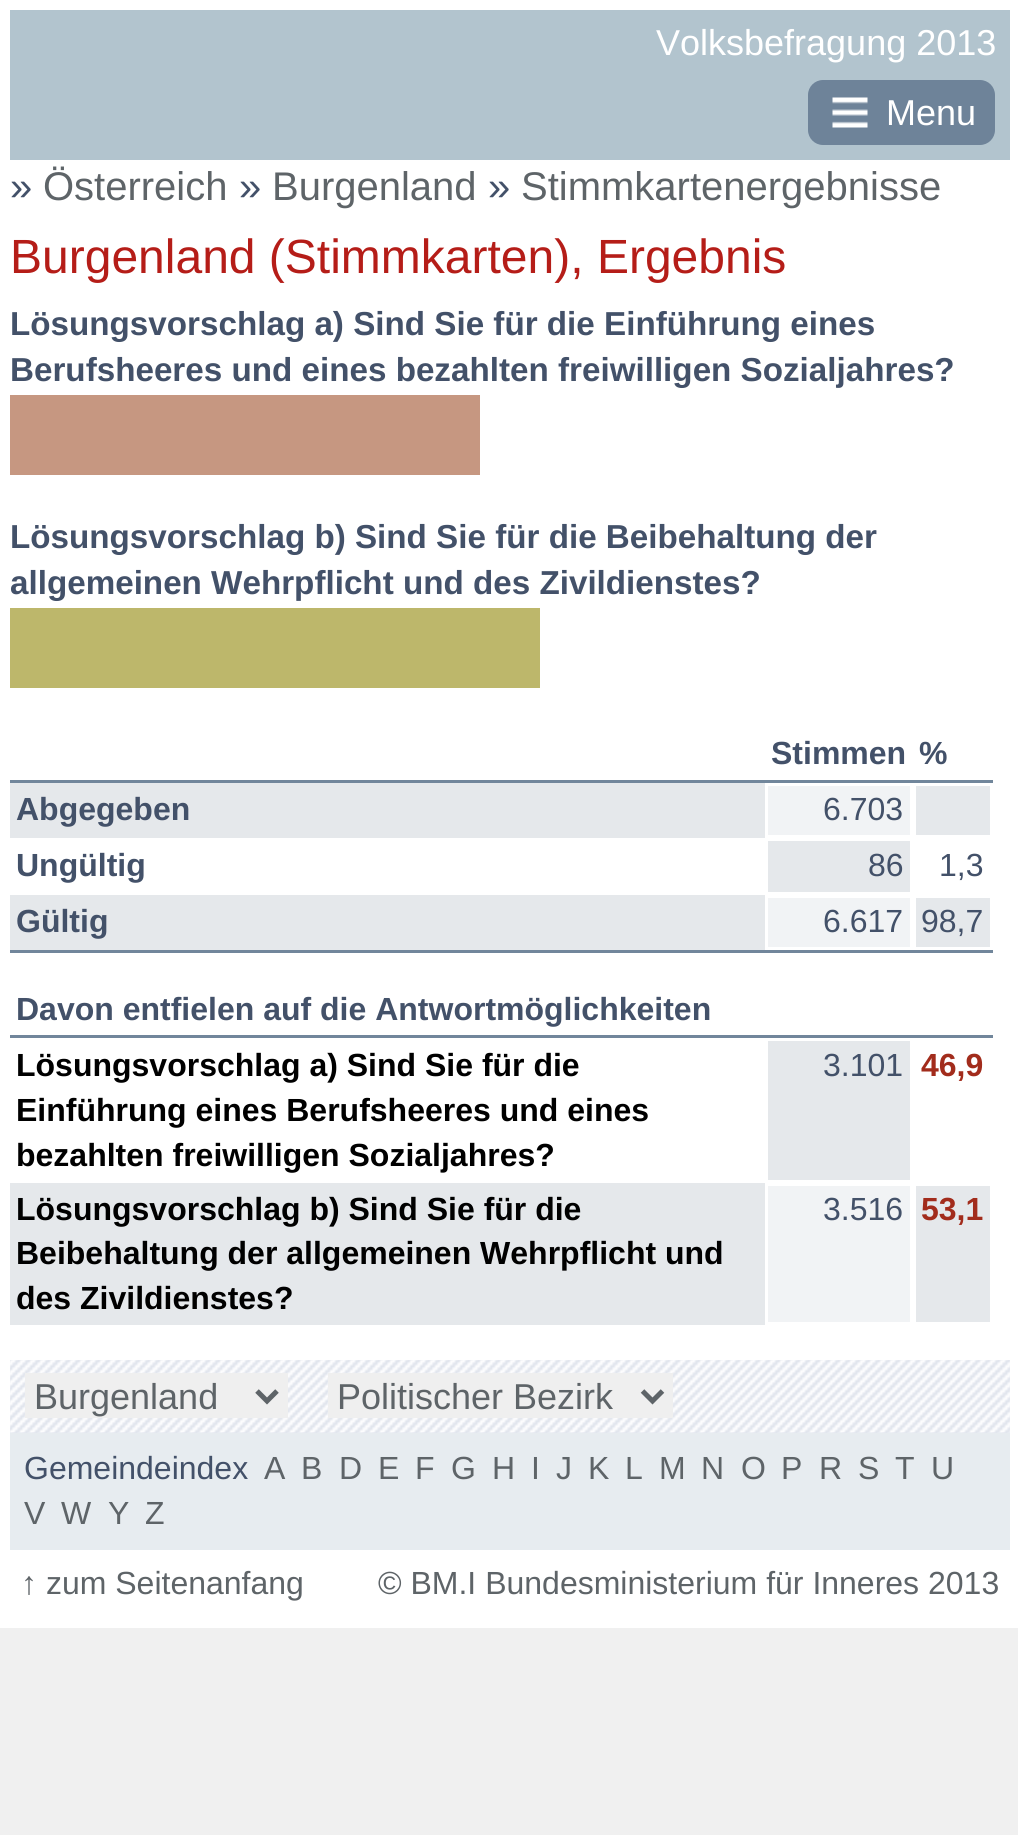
#include <cairo/cairo.h>
#include <math.h>
#include <stddef.h>


static void rounded_rect(cairo_t *cr, double x, double y, double w, double h, double r) {
  cairo_new_sub_path(cr);
  cairo_arc(cr, x + w - r, y + h - r, r, 0, M_PI / 2);
  cairo_arc(cr, x + r, y + h - r, r, M_PI / 2, M_PI);
  cairo_arc(cr, x + r, y + r, r, M_PI, 1.5 * M_PI);
  cairo_arc(cr, x + w - r, y + r, r, 1.5 * M_PI, 2 * M_PI);
  cairo_close_path(cr);
}

static void draw_image(cairo_t *cr, const char *path, double x, double y, double w, double h) {
  cairo_surface_t *image = cairo_image_surface_create_from_png(path);
  cairo_save(cr);
  cairo_set_source_surface(cr, image, x, y);
  cairo_rectangle(cr, x, y, w, h);
  cairo_fill(cr);
  cairo_restore(cr);
  cairo_surface_destroy(image);
}

static void draw(cairo_t *cr) {
  cairo_set_source_rgb(cr, 240 / 255.0, 240 / 255.0, 240 / 255.0);
  cairo_paint(cr);
  cairo_set_source_rgb(cr, 1, 1, 1);
  cairo_rectangle(cr, 0, 0, 1018, 1628);
  cairo_fill(cr);
  cairo_set_source_rgb(cr, 178 / 255.0, 196 / 255.0, 206 / 255.0);
  cairo_rectangle(cr, 10, 10, 1000, 150);
  cairo_fill(cr);
  cairo_set_source_rgb(cr, 110 / 255.0, 131 / 255.0, 153 / 255.0);
  rounded_rect(cr, 808, 80, 187, 65, 15);
  cairo_fill(cr);
  draw_image(cr, "images/1.png", 832, 97, 36, 31);
  cairo_set_source_rgb(cr, 198 / 255.0, 151 / 255.0, 129 / 255.0);
  cairo_rectangle(cr, 10, 395, 470, 80);
  cairo_fill(cr);
  cairo_set_source_rgb(cr, 189 / 255.0, 183 / 255.0, 107 / 255.0);
  cairo_rectangle(cr, 10, 608, 530, 80);
  cairo_fill(cr);
  cairo_set_source_rgb(cr, 113 / 255.0, 134 / 255.0, 155 / 255.0);
  cairo_rectangle(cr, 10, 780, 983, 3);
  cairo_fill(cr);
  cairo_set_source_rgb(cr, 229 / 255.0, 232 / 255.0, 235 / 255.0);
  cairo_rectangle(cr, 10, 783, 755, 55);
  cairo_fill(cr);
  cairo_set_source_rgb(cr, 241 / 255.0, 243 / 255.0, 245 / 255.0);
  cairo_rectangle(cr, 768, 786, 142, 49);
  cairo_fill(cr);
  cairo_set_source_rgb(cr, 229 / 255.0, 232 / 255.0, 235 / 255.0);
  cairo_rectangle(cr, 916, 786, 74, 49);
  cairo_fill(cr);
  cairo_rectangle(cr, 768, 841, 142, 51);
  cairo_fill(cr);
  cairo_rectangle(cr, 10, 895, 755, 55);
  cairo_fill(cr);
  cairo_set_source_rgb(cr, 241 / 255.0, 243 / 255.0, 245 / 255.0);
  cairo_rectangle(cr, 768, 898, 142, 49);
  cairo_fill(cr);
  cairo_set_source_rgb(cr, 229 / 255.0, 232 / 255.0, 235 / 255.0);
  cairo_rectangle(cr, 916, 898, 74, 49);
  cairo_fill(cr);
  cairo_set_source_rgb(cr, 113 / 255.0, 134 / 255.0, 155 / 255.0);
  cairo_rectangle(cr, 10, 950, 983, 3);
  cairo_fill(cr);
  cairo_rectangle(cr, 10, 1035, 983, 3);
  cairo_fill(cr);
  cairo_set_source_rgb(cr, 229 / 255.0, 232 / 255.0, 235 / 255.0);
  cairo_rectangle(cr, 768, 1041, 142, 139);
  cairo_fill(cr);
  cairo_rectangle(cr, 10, 1183, 755, 142);
  cairo_fill(cr);
  cairo_set_source_rgb(cr, 241 / 255.0, 243 / 255.0, 245 / 255.0);
  cairo_rectangle(cr, 768, 1186, 142, 136);
  cairo_fill(cr);
  cairo_set_source_rgb(cr, 229 / 255.0, 232 / 255.0, 235 / 255.0);
  cairo_rectangle(cr, 916, 1186, 74, 136);
  cairo_fill(cr);
  cairo_set_source_rgb(cr, 226 / 255.0, 230 / 255.0, 238 / 255.0);
  cairo_rectangle(cr, 10, 1432, 1000, 1);
  cairo_fill(cr);
  draw_image(cr, "images/2.png", 10, 1360, 1000, 73);
  cairo_set_source_rgb(cr, 239 / 255.0, 239 / 255.0, 239 / 255.0);
  cairo_rectangle(cr, 25, 1373, 263, 45);
  cairo_fill(cr);
  cairo_new_path(cr);
  cairo_move_to(cr, 257, 1391);
  cairo_line_to(cr, 267, 1401);
  cairo_line_to(cr, 277, 1391);
  cairo_set_source_rgb(cr, 94 / 255.0, 100 / 255.0, 104 / 255.0);
  cairo_set_line_width(cr, 5);
  cairo_stroke(cr);
  cairo_set_source_rgb(cr, 239 / 255.0, 239 / 255.0, 239 / 255.0);
  cairo_rectangle(cr, 328, 1373, 345, 45);
  cairo_fill(cr);
  cairo_new_path(cr);
  cairo_move_to(cr, 642.5, 1391);
  cairo_line_to(cr, 652.5, 1401);
  cairo_line_to(cr, 662.5, 1391);
  cairo_set_source_rgb(cr, 94 / 255.0, 100 / 255.0, 104 / 255.0);
  cairo_stroke(cr);
  cairo_set_source_rgb(cr, 231 / 255.0, 236 / 255.0, 240 / 255.0);
  cairo_rectangle(cr, 10, 1433, 1000, 117);
  cairo_fill(cr);
  cairo_select_font_face(cr, "Liberation Sans", CAIRO_FONT_SLANT_NORMAL, CAIRO_FONT_WEIGHT_NORMAL);
  cairo_set_font_size(cr, 36);
  cairo_set_source_rgb(cr, 1, 1, 1);
  cairo_move_to(cr, 656, 55);
  cairo_show_text(cr, "Volksbefragung 2013");
  cairo_move_to(cr, 886, 125);
  cairo_show_text(cr, "Menu");
  cairo_set_font_size(cr, 40);
  cairo_set_source_rgb(cr, 67 / 255.0, 81 / 255.0, 105 / 255.0);
  cairo_move_to(cr, 10, 200);
  cairo_show_text(cr, "»");
  cairo_set_source_rgb(cr, 94 / 255.0, 100 / 255.0, 104 / 255.0);
  cairo_move_to(cr, 43, 200);
  cairo_show_text(cr, "Österreich");
  cairo_set_source_rgb(cr, 67 / 255.0, 81 / 255.0, 105 / 255.0);
  cairo_move_to(cr, 239, 200);
  cairo_show_text(cr, "»");
  cairo_set_source_rgb(cr, 94 / 255.0, 100 / 255.0, 104 / 255.0);
  cairo_move_to(cr, 272, 200);
  cairo_show_text(cr, "Burgenland");
  cairo_set_source_rgb(cr, 67 / 255.0, 81 / 255.0, 105 / 255.0);
  cairo_move_to(cr, 488, 200);
  cairo_show_text(cr, "»");
  cairo_set_source_rgb(cr, 94 / 255.0, 100 / 255.0, 104 / 255.0);
  cairo_move_to(cr, 521, 200);
  cairo_show_text(cr, "Stimmkartenergebnisse");
  cairo_set_font_size(cr, 48);
  cairo_set_source_rgb(cr, 181 / 255.0, 29 / 255.0, 24 / 255.0);
  cairo_move_to(cr, 10, 273);
  cairo_show_text(cr, "Burgenland (Stimmkarten), Ergebnis");
  cairo_select_font_face(cr, "Liberation Sans", CAIRO_FONT_SLANT_NORMAL, CAIRO_FONT_WEIGHT_BOLD);
  cairo_set_font_size(cr, 33.2);
  cairo_set_source_rgb(cr, 67 / 255.0, 81 / 255.0, 105 / 255.0);
  cairo_move_to(cr, 10, 335);
  cairo_show_text(cr, "Lösungsvorschlag a) Sind Sie für die Einführung eines");
  cairo_move_to(cr, 10, 381);
  cairo_show_text(cr, "Berufsheeres und eines bezahlten freiwilligen Sozialjahres?");
  cairo_move_to(cr, 10, 548);
  cairo_show_text(cr, "Lösungsvorschlag b) Sind Sie für die Beibehaltung der");
  cairo_move_to(cr, 10, 594);
  cairo_show_text(cr, "allgemeinen Wehrpflicht und des Zivildienstes?");
  cairo_set_font_size(cr, 32);
  cairo_move_to(cr, 771, 764);
  cairo_show_text(cr, "Stimmen");
  cairo_move_to(cr, 919, 764);
  cairo_show_text(cr, "%");
  cairo_move_to(cr, 16, 820);
  cairo_show_text(cr, "Abgegeben");
  cairo_select_font_face(cr, "Liberation Sans", CAIRO_FONT_SLANT_NORMAL, CAIRO_FONT_WEIGHT_NORMAL);
  cairo_move_to(cr, 823, 820);
  cairo_show_text(cr, "6.703");
  cairo_select_font_face(cr, "Liberation Sans", CAIRO_FONT_SLANT_NORMAL, CAIRO_FONT_WEIGHT_BOLD);
  cairo_move_to(cr, 16, 876);
  cairo_show_text(cr, "Ungültig");
  cairo_select_font_face(cr, "Liberation Sans", CAIRO_FONT_SLANT_NORMAL, CAIRO_FONT_WEIGHT_NORMAL);
  cairo_move_to(cr, 868, 876);
  cairo_show_text(cr, "86");
  cairo_move_to(cr, 939, 876);
  cairo_show_text(cr, "1,3");
  cairo_select_font_face(cr, "Liberation Sans", CAIRO_FONT_SLANT_NORMAL, CAIRO_FONT_WEIGHT_BOLD);
  cairo_move_to(cr, 16, 932);
  cairo_show_text(cr, "Gültig");
  cairo_select_font_face(cr, "Liberation Sans", CAIRO_FONT_SLANT_NORMAL, CAIRO_FONT_WEIGHT_NORMAL);
  cairo_move_to(cr, 823, 932);
  cairo_show_text(cr, "6.617");
  cairo_move_to(cr, 921, 932);
  cairo_show_text(cr, "98,7");
  cairo_select_font_face(cr, "Liberation Sans", CAIRO_FONT_SLANT_NORMAL, CAIRO_FONT_WEIGHT_BOLD);
  cairo_move_to(cr, 16, 1020);
  cairo_show_text(cr, "Davon entfielen auf die Antwortmöglichkeiten");
  cairo_set_source_rgb(cr, 0, 0, 0);
  cairo_move_to(cr, 16, 1076);
  cairo_show_text(cr, "Lösungsvorschlag a) Sind Sie für die");
  cairo_move_to(cr, 16, 1121);
  cairo_show_text(cr, "Einführung eines Berufsheeres und eines");
  cairo_move_to(cr, 16, 1166);
  cairo_show_text(cr, "bezahlten freiwilligen Sozialjahres?");
  cairo_select_font_face(cr, "Liberation Sans", CAIRO_FONT_SLANT_NORMAL, CAIRO_FONT_WEIGHT_NORMAL);
  cairo_set_source_rgb(cr, 67 / 255.0, 81 / 255.0, 105 / 255.0);
  cairo_move_to(cr, 823, 1076);
  cairo_show_text(cr, "3.101");
  cairo_select_font_face(cr, "Liberation Sans", CAIRO_FONT_SLANT_NORMAL, CAIRO_FONT_WEIGHT_BOLD);
  cairo_set_source_rgb(cr, 162 / 255.0, 44 / 255.0, 28 / 255.0);
  cairo_move_to(cr, 921, 1076);
  cairo_show_text(cr, "46,9");
  cairo_set_source_rgb(cr, 0, 0, 0);
  cairo_move_to(cr, 16, 1220);
  cairo_show_text(cr, "Lösungsvorschlag b) Sind Sie für die");
  cairo_move_to(cr, 16, 1264);
  cairo_show_text(cr, "Beibehaltung der allgemeinen Wehrpflicht und");
  cairo_move_to(cr, 16, 1309);
  cairo_show_text(cr, "des Zivildienstes?");
  cairo_select_font_face(cr, "Liberation Sans", CAIRO_FONT_SLANT_NORMAL, CAIRO_FONT_WEIGHT_NORMAL);
  cairo_set_source_rgb(cr, 67 / 255.0, 81 / 255.0, 105 / 255.0);
  cairo_move_to(cr, 823, 1220);
  cairo_show_text(cr, "3.516");
  cairo_select_font_face(cr, "Liberation Sans", CAIRO_FONT_SLANT_NORMAL, CAIRO_FONT_WEIGHT_BOLD);
  cairo_set_source_rgb(cr, 162 / 255.0, 44 / 255.0, 28 / 255.0);
  cairo_move_to(cr, 921, 1220);
  cairo_show_text(cr, "53,1");
  cairo_select_font_face(cr, "Liberation Sans", CAIRO_FONT_SLANT_NORMAL, CAIRO_FONT_WEIGHT_NORMAL);
  cairo_set_font_size(cr, 36);
  cairo_set_source_rgb(cr, 94 / 255.0, 100 / 255.0, 104 / 255.0);
  cairo_move_to(cr, 34, 1409);
  cairo_show_text(cr, "Burgenland");
  cairo_move_to(cr, 337, 1409);
  cairo_show_text(cr, "Politischer Bezirk");
  cairo_set_font_size(cr, 32);
  cairo_set_source_rgb(cr, 67 / 255.0, 81 / 255.0, 105 / 255.0);
  cairo_move_to(cr, 24, 1479);
  cairo_show_text(cr, "Gemeindeindex");
  cairo_set_source_rgb(cr, 94 / 255.0, 100 / 255.0, 104 / 255.0);
  cairo_move_to(cr, 264, 1479);
  cairo_show_text(cr, "A");
  cairo_move_to(cr, 301, 1479);
  cairo_show_text(cr, "B");
  cairo_move_to(cr, 339, 1479);
  cairo_show_text(cr, "D");
  cairo_move_to(cr, 378, 1479);
  cairo_show_text(cr, "E");
  cairo_move_to(cr, 415, 1479);
  cairo_show_text(cr, "F");
  cairo_move_to(cr, 451, 1479);
  cairo_show_text(cr, "G");
  cairo_move_to(cr, 492, 1479);
  cairo_show_text(cr, "H");
  cairo_move_to(cr, 531, 1479);
  cairo_show_text(cr, "I");
  cairo_move_to(cr, 556, 1479);
  cairo_show_text(cr, "J");
  cairo_move_to(cr, 588, 1479);
  cairo_show_text(cr, "K");
  cairo_move_to(cr, 625, 1479);
  cairo_show_text(cr, "L");
  cairo_move_to(cr, 659, 1479);
  cairo_show_text(cr, "M");
  cairo_move_to(cr, 701, 1479);
  cairo_show_text(cr, "N");
  cairo_move_to(cr, 741, 1479);
  cairo_show_text(cr, "O");
  cairo_move_to(cr, 781, 1479);
  cairo_show_text(cr, "P");
  cairo_move_to(cr, 819, 1479);
  cairo_show_text(cr, "R");
  cairo_move_to(cr, 858, 1479);
  cairo_show_text(cr, "S");
  cairo_move_to(cr, 895, 1479);
  cairo_show_text(cr, "T");
  cairo_move_to(cr, 931, 1479);
  cairo_show_text(cr, "U");
  cairo_move_to(cr, 24, 1524);
  cairo_show_text(cr, "V");
  cairo_move_to(cr, 61, 1524);
  cairo_show_text(cr, "W");
  cairo_move_to(cr, 108, 1524);
  cairo_show_text(cr, "Y");
  cairo_move_to(cr, 145, 1524);
  cairo_show_text(cr, "Z");
  cairo_move_to(cr, 21, 1594);
  cairo_show_text(cr, "↑ zum Seitenanfang");
  cairo_move_to(cr, 378, 1594);
  cairo_show_text(cr, "© BM.I Bundesministerium für Inneres 2013");
}

int main(void) {
  cairo_surface_t *surface = cairo_image_surface_create(CAIRO_FORMAT_RGB24, 1018, 1835);
  cairo_t *cr = cairo_create(surface);
  cairo_font_options_t *options = cairo_font_options_create();
  cairo_font_options_set_hint_metrics(options, CAIRO_HINT_METRICS_OFF);
  cairo_font_options_set_hint_style(options, CAIRO_HINT_STYLE_NONE);
  cairo_set_font_options(cr, options);
  cairo_set_miter_limit(cr, 4);
  draw(cr);
  cairo_surface_write_to_png(surface, "out.png");
  cairo_font_options_destroy(options);
  cairo_destroy(cr);
  cairo_surface_destroy(surface);
  return 0;
}
